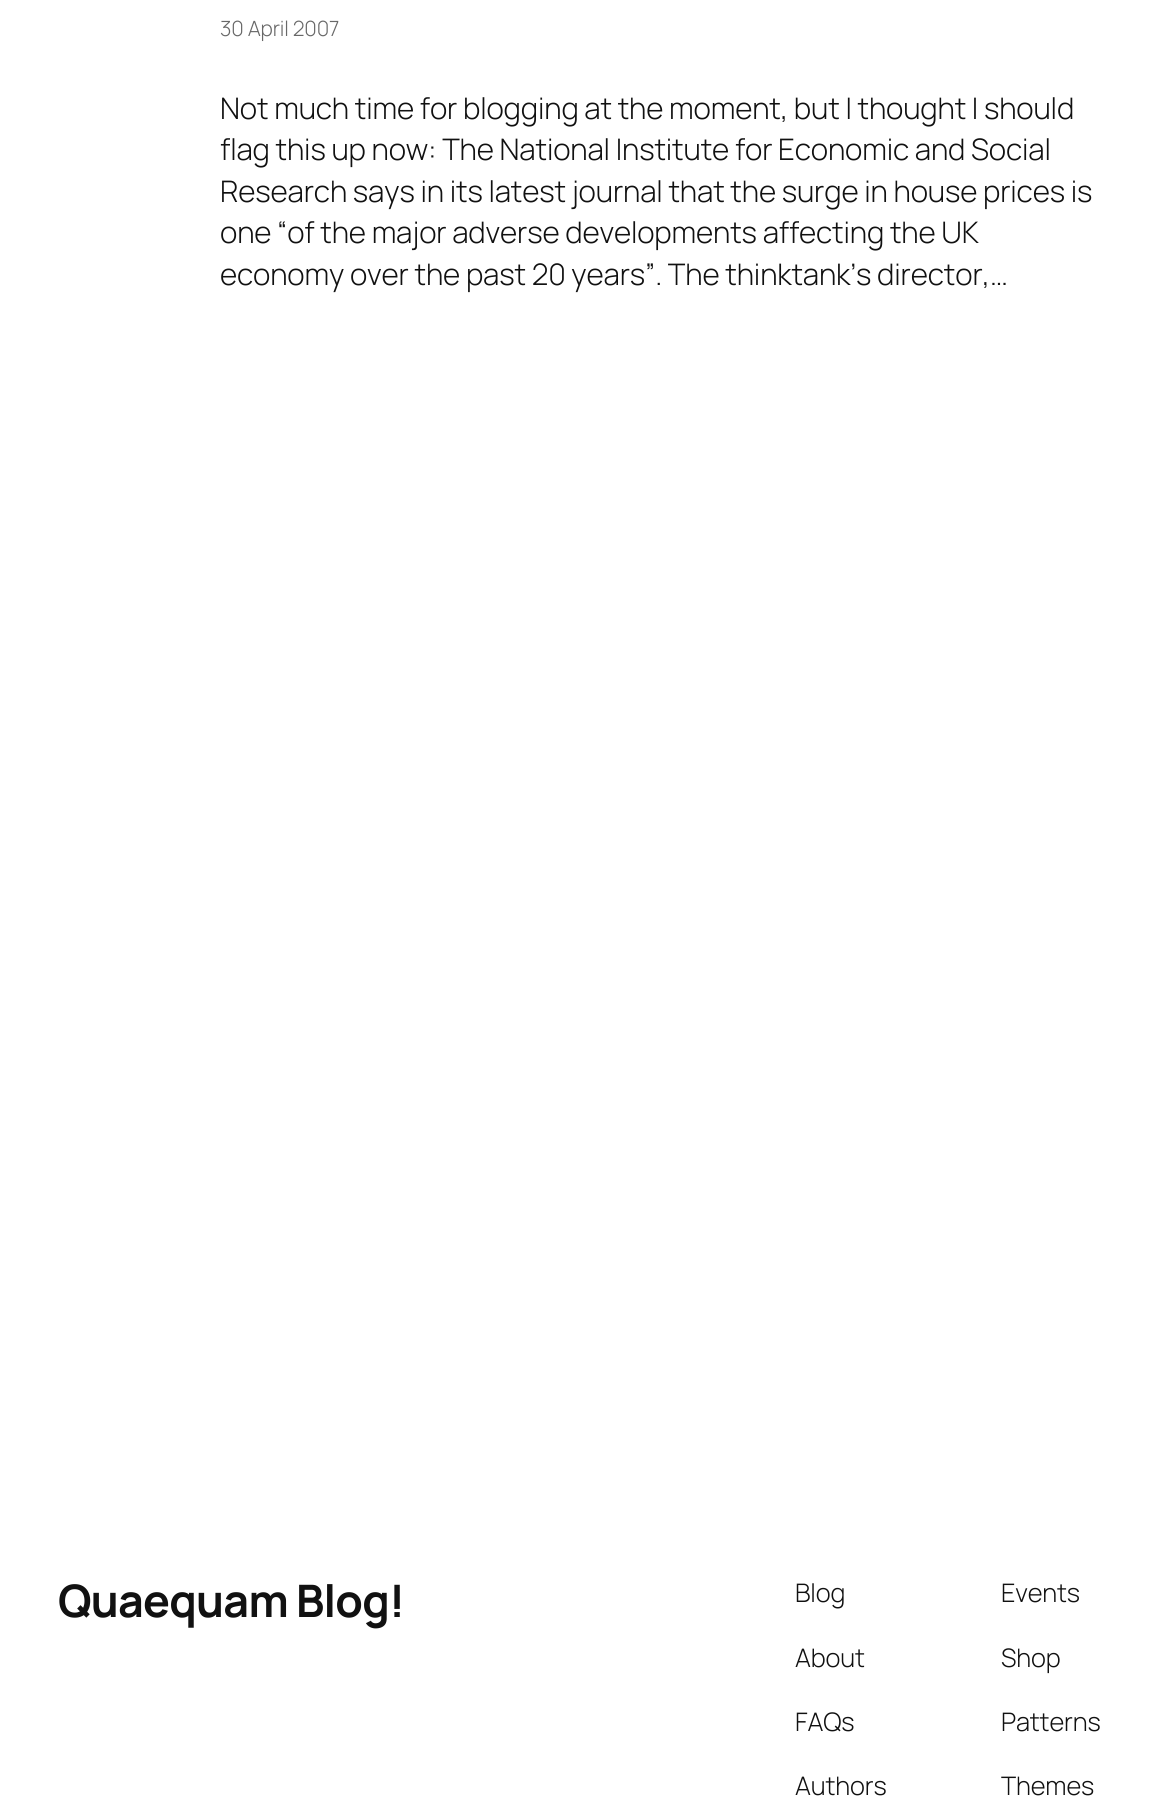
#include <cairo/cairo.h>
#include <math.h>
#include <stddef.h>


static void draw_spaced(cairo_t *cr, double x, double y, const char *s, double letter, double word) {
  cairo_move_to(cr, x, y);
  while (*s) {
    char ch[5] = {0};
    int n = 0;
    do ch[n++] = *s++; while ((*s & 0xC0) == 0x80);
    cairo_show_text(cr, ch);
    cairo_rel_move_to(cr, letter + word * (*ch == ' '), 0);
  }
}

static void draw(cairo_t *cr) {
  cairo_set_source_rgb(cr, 1, 1, 1);
  cairo_paint(cr);
  cairo_select_font_face(cr, "Manrope Light", CAIRO_FONT_SLANT_NORMAL, CAIRO_FONT_WEIGHT_NORMAL);
  cairo_set_font_size(cr, 21);
  cairo_set_source_rgb(cr, 104 / 255.0, 104 / 255.0, 104 / 255.0);
  draw_spaced(cr, 220, 36, "30 April 2007", -0.15, 0);
  cairo_set_font_size(cr, 29.65);
  cairo_set_source_rgb(cr, 17 / 255.0, 17 / 255.0, 17 / 255.0);
  draw_spaced(cr, 220, 119, "Not much time for blogging at the moment, but I thought I should", -0.15, 0);
  draw_spaced(cr, 220, 160, "flag this up now: The National Institute for Economic and Social", -0.15, 0);
  draw_spaced(cr, 220, 202, "Research says in its latest journal that the surge in house prices is", -0.15, 0);
  draw_spaced(cr, 220, 243, "one “of the major adverse developments affecting the UK", -0.15, 0);
  draw_spaced(cr, 220, 285, "economy over the past 20 years”. The thinktank’s director,…", -0.15, 0);
  cairo_select_font_face(cr, "Manrope", CAIRO_FONT_SLANT_NORMAL, CAIRO_FONT_WEIGHT_BOLD);
  cairo_set_font_size(cr, 44.75);
  draw_spaced(cr, 58, 1617, "Quaequam Blog!", -0.75, 0);
  cairo_select_font_face(cr, "Manrope Light", CAIRO_FONT_SLANT_NORMAL, CAIRO_FONT_WEIGHT_NORMAL);
  cairo_set_font_size(cr, 25.5);
  draw_spaced(cr, 795, 1602, "Blog", -0.15, 0);
  draw_spaced(cr, 795, 1667, "About", -0.15, 0);
  draw_spaced(cr, 795, 1731, "FAQs", -0.15, 0);
  draw_spaced(cr, 795, 1795, "Authors", -0.15, 0);
  draw_spaced(cr, 1001, 1602, "Events", -0.15, 0);
  draw_spaced(cr, 1001, 1667, "Shop", -0.15, 0);
  draw_spaced(cr, 1001, 1731, "Patterns", -0.15, 0);
  draw_spaced(cr, 1001, 1795, "Themes", -0.15, 0);
}

int main(void) {
  cairo_surface_t *surface = cairo_image_surface_create(CAIRO_FORMAT_RGB24, 1157, 1820);
  cairo_t *cr = cairo_create(surface);
  cairo_font_options_t *options = cairo_font_options_create();
  cairo_font_options_set_hint_metrics(options, CAIRO_HINT_METRICS_OFF);
  cairo_font_options_set_hint_style(options, CAIRO_HINT_STYLE_NONE);
  cairo_set_font_options(cr, options);
  cairo_set_miter_limit(cr, 4);
  draw(cr);
  cairo_surface_write_to_png(surface, "out.png");
  cairo_font_options_destroy(options);
  cairo_destroy(cr);
  cairo_surface_destroy(surface);
  return 0;
}
